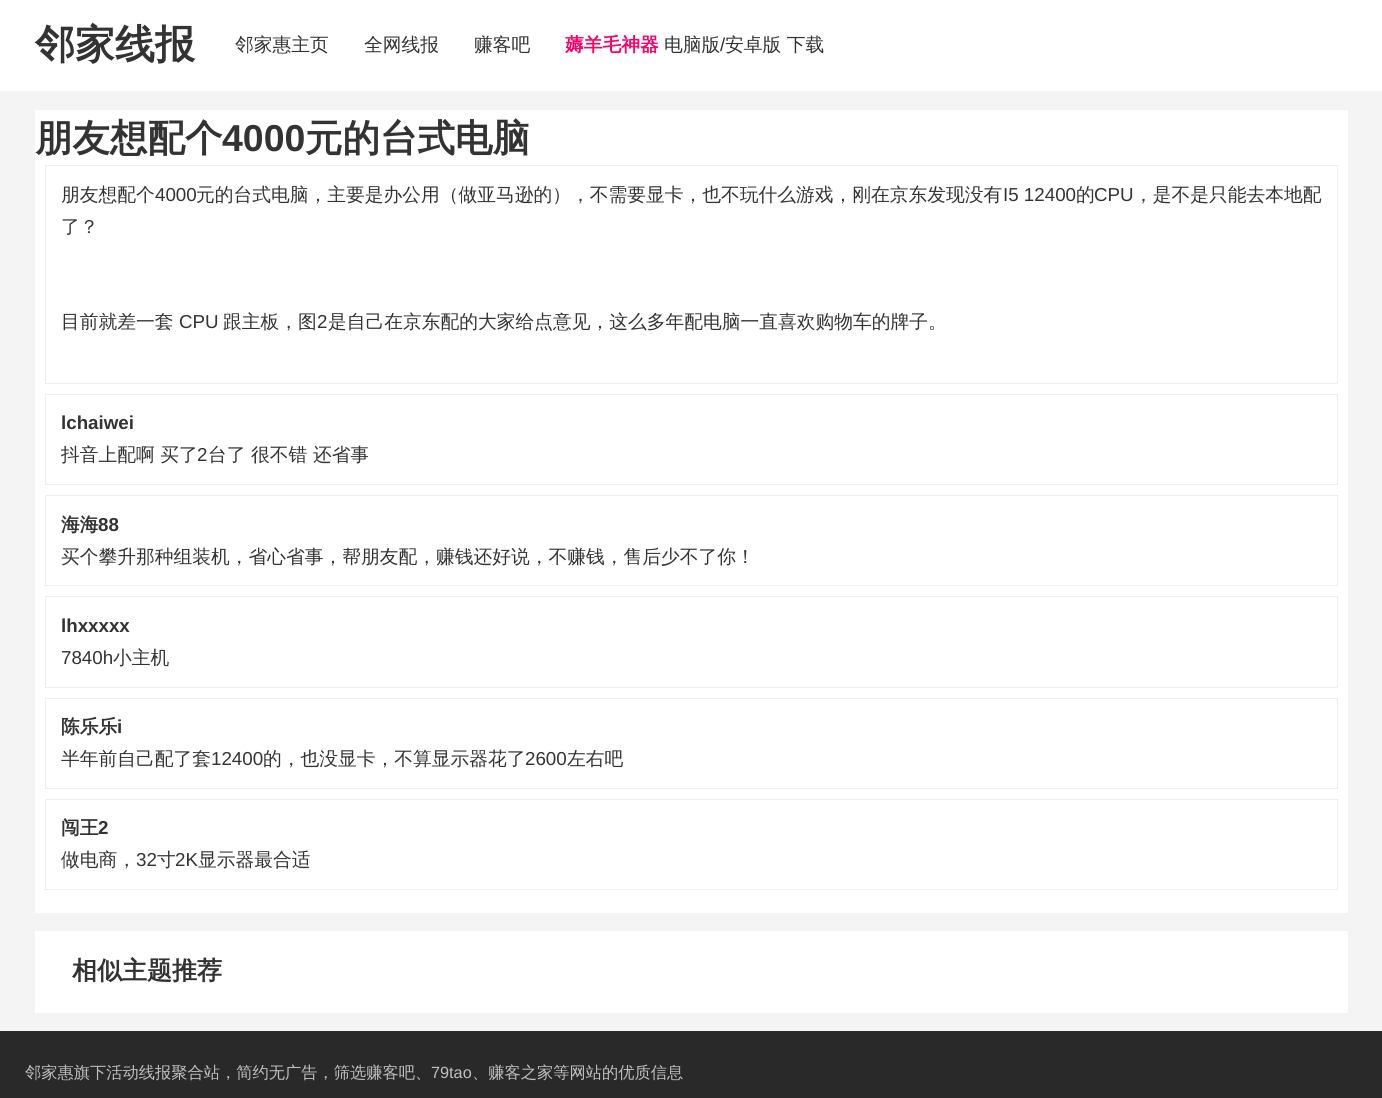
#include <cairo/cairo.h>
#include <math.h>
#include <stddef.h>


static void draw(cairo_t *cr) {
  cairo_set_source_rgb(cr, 244 / 255.0, 244 / 255.0, 244 / 255.0);
  cairo_paint(cr);
  cairo_set_source_rgb(cr, 1, 1, 1);
  cairo_rectangle(cr, 0, 0, 1382, 91);
  cairo_fill(cr);
  cairo_rectangle(cr, 35, 110, 1313, 803);
  cairo_fill(cr);
  cairo_rectangle(cr, 45.5, 165.5, 1292, 218);
  cairo_set_source_rgb(cr, 238 / 255.0, 238 / 255.0, 238 / 255.0);
  cairo_set_line_width(cr, 1);
  cairo_stroke(cr);
  cairo_rectangle(cr, 45.5, 394.5, 1292, 90);
  cairo_stroke(cr);
  cairo_rectangle(cr, 45.5, 495.5, 1292, 90);
  cairo_stroke(cr);
  cairo_rectangle(cr, 45.5, 596.5, 1292, 91);
  cairo_stroke(cr);
  cairo_rectangle(cr, 45.5, 698.5, 1292, 90);
  cairo_stroke(cr);
  cairo_rectangle(cr, 45.5, 799.5, 1292, 90);
  cairo_stroke(cr);
  cairo_set_source_rgb(cr, 1, 1, 1);
  cairo_rectangle(cr, 35, 931, 1313, 82);
  cairo_fill(cr);
  cairo_set_source_rgb(cr, 41 / 255.0, 41 / 255.0, 41 / 255.0);
  cairo_rectangle(cr, 0, 1031, 1382, 67);
  cairo_fill(cr);
  cairo_select_font_face(cr, "WenQuanYi Zen Hei", CAIRO_FONT_SLANT_NORMAL, CAIRO_FONT_WEIGHT_BOLD);
  cairo_set_font_size(cr, 40);
  cairo_set_source_rgb(cr, 51 / 255.0, 51 / 255.0, 51 / 255.0);
  cairo_move_to(cr, 35, 58);
  cairo_show_text(cr, "邻家线报");
  cairo_select_font_face(cr, "WenQuanYi Zen Hei Medium", CAIRO_FONT_SLANT_NORMAL, CAIRO_FONT_WEIGHT_NORMAL);
  cairo_set_font_size(cr, 18.75);
  cairo_move_to(cr, 235, 51);
  cairo_show_text(cr, "邻家惠主页");
  cairo_move_to(cr, 364, 51);
  cairo_show_text(cr, "全网线报");
  cairo_move_to(cr, 474, 51);
  cairo_show_text(cr, "赚客吧");
  cairo_select_font_face(cr, "WenQuanYi Zen Hei", CAIRO_FONT_SLANT_NORMAL, CAIRO_FONT_WEIGHT_BOLD);
  cairo_set_source_rgb(cr, 1, 0, 102 / 255.0);
  cairo_move_to(cr, 565, 51);
  cairo_show_text(cr, "薅羊毛神器");
  cairo_select_font_face(cr, "WenQuanYi Zen Hei Medium", CAIRO_FONT_SLANT_NORMAL, CAIRO_FONT_WEIGHT_NORMAL);
  cairo_set_source_rgb(cr, 51 / 255.0, 51 / 255.0, 51 / 255.0);
  cairo_move_to(cr, 664, 51);
  cairo_show_text(cr, "电脑版");
  cairo_select_font_face(cr, "Liberation Sans", CAIRO_FONT_SLANT_NORMAL, CAIRO_FONT_WEIGHT_NORMAL);
  cairo_move_to(cr, 720, 51);
  cairo_show_text(cr, "/");
  cairo_select_font_face(cr, "WenQuanYi Zen Hei Medium", CAIRO_FONT_SLANT_NORMAL, CAIRO_FONT_WEIGHT_NORMAL);
  cairo_move_to(cr, 725, 51);
  cairo_show_text(cr, "安卓版 下载");
  cairo_select_font_face(cr, "WenQuanYi Zen Hei", CAIRO_FONT_SLANT_NORMAL, CAIRO_FONT_WEIGHT_BOLD);
  cairo_set_font_size(cr, 37.5);
  cairo_move_to(cr, 35, 151);
  cairo_show_text(cr, "朋友想配个");
  cairo_select_font_face(cr, "Liberation Sans", CAIRO_FONT_SLANT_NORMAL, CAIRO_FONT_WEIGHT_BOLD);
  cairo_move_to(cr, 222, 151);
  cairo_show_text(cr, "4000");
  cairo_select_font_face(cr, "WenQuanYi Zen Hei", CAIRO_FONT_SLANT_NORMAL, CAIRO_FONT_WEIGHT_BOLD);
  cairo_move_to(cr, 305, 151);
  cairo_show_text(cr, "元的台式电脑");
  cairo_select_font_face(cr, "WenQuanYi Zen Hei Medium", CAIRO_FONT_SLANT_NORMAL, CAIRO_FONT_WEIGHT_NORMAL);
  cairo_set_font_size(cr, 18.75);
  cairo_move_to(cr, 61, 201);
  cairo_show_text(cr, "朋友想配个");
  cairo_select_font_face(cr, "Liberation Sans", CAIRO_FONT_SLANT_NORMAL, CAIRO_FONT_WEIGHT_NORMAL);
  cairo_move_to(cr, 155, 201);
  cairo_show_text(cr, "4000");
  cairo_select_font_face(cr, "WenQuanYi Zen Hei Medium", CAIRO_FONT_SLANT_NORMAL, CAIRO_FONT_WEIGHT_NORMAL);
  cairo_move_to(cr, 196, 201);
  cairo_show_text(cr, "元的台式电脑，主要是办公用（做亚马逊的），不需要显卡，也不玩什么游戏，刚在京东发现没有");
  cairo_select_font_face(cr, "Liberation Sans", CAIRO_FONT_SLANT_NORMAL, CAIRO_FONT_WEIGHT_NORMAL);
  cairo_move_to(cr, 1003, 201);
  cairo_show_text(cr, "I5 12400");
  cairo_select_font_face(cr, "WenQuanYi Zen Hei Medium", CAIRO_FONT_SLANT_NORMAL, CAIRO_FONT_WEIGHT_NORMAL);
  cairo_move_to(cr, 1076, 201);
  cairo_show_text(cr, "的");
  cairo_select_font_face(cr, "Liberation Sans", CAIRO_FONT_SLANT_NORMAL, CAIRO_FONT_WEIGHT_NORMAL);
  cairo_move_to(cr, 1094, 201);
  cairo_show_text(cr, "CPU");
  cairo_select_font_face(cr, "WenQuanYi Zen Hei Medium", CAIRO_FONT_SLANT_NORMAL, CAIRO_FONT_WEIGHT_NORMAL);
  cairo_move_to(cr, 1134, 201);
  cairo_show_text(cr, "，是不是只能去本地配");
  cairo_move_to(cr, 61, 233);
  cairo_show_text(cr, "了？");
  cairo_move_to(cr, 61, 328);
  cairo_show_text(cr, "目前就差一套");
  cairo_select_font_face(cr, "Liberation Sans", CAIRO_FONT_SLANT_NORMAL, CAIRO_FONT_WEIGHT_NORMAL);
  cairo_move_to(cr, 179, 328);
  cairo_show_text(cr, "CPU");
  cairo_select_font_face(cr, "WenQuanYi Zen Hei Medium", CAIRO_FONT_SLANT_NORMAL, CAIRO_FONT_WEIGHT_NORMAL);
  cairo_move_to(cr, 223, 328);
  cairo_show_text(cr, "跟主板，图");
  cairo_select_font_face(cr, "Liberation Sans", CAIRO_FONT_SLANT_NORMAL, CAIRO_FONT_WEIGHT_NORMAL);
  cairo_move_to(cr, 317, 328);
  cairo_show_text(cr, "2");
  cairo_select_font_face(cr, "WenQuanYi Zen Hei Medium", CAIRO_FONT_SLANT_NORMAL, CAIRO_FONT_WEIGHT_NORMAL);
  cairo_move_to(cr, 328, 328);
  cairo_show_text(cr, "是自己在京东配的大家给点意见，这么多年配电脑一直喜欢购物车的牌子。");
  cairo_select_font_face(cr, "Liberation Sans", CAIRO_FONT_SLANT_NORMAL, CAIRO_FONT_WEIGHT_BOLD);
  cairo_move_to(cr, 61, 429);
  cairo_show_text(cr, "lchaiwei");
  cairo_select_font_face(cr, "WenQuanYi Zen Hei Medium", CAIRO_FONT_SLANT_NORMAL, CAIRO_FONT_WEIGHT_NORMAL);
  cairo_move_to(cr, 61, 461);
  cairo_show_text(cr, "抖音上配啊 买了");
  cairo_select_font_face(cr, "Liberation Sans", CAIRO_FONT_SLANT_NORMAL, CAIRO_FONT_WEIGHT_NORMAL);
  cairo_move_to(cr, 197, 461);
  cairo_show_text(cr, "2");
  cairo_select_font_face(cr, "WenQuanYi Zen Hei Medium", CAIRO_FONT_SLANT_NORMAL, CAIRO_FONT_WEIGHT_NORMAL);
  cairo_move_to(cr, 208, 461);
  cairo_show_text(cr, "台了 很不错 还省事");
  cairo_select_font_face(cr, "WenQuanYi Zen Hei", CAIRO_FONT_SLANT_NORMAL, CAIRO_FONT_WEIGHT_BOLD);
  cairo_move_to(cr, 61, 531);
  cairo_show_text(cr, "海海");
  cairo_select_font_face(cr, "Liberation Sans", CAIRO_FONT_SLANT_NORMAL, CAIRO_FONT_WEIGHT_BOLD);
  cairo_move_to(cr, 98, 531);
  cairo_show_text(cr, "88");
  cairo_select_font_face(cr, "WenQuanYi Zen Hei Medium", CAIRO_FONT_SLANT_NORMAL, CAIRO_FONT_WEIGHT_NORMAL);
  cairo_move_to(cr, 61, 563);
  cairo_show_text(cr, "买个攀升那种组装机，省心省事，帮朋友配，赚钱还好说，不赚钱，售后少不了你！");
  cairo_select_font_face(cr, "Liberation Sans", CAIRO_FONT_SLANT_NORMAL, CAIRO_FONT_WEIGHT_BOLD);
  cairo_move_to(cr, 61, 632);
  cairo_show_text(cr, "lhxxxxx");
  cairo_select_font_face(cr, "Liberation Sans", CAIRO_FONT_SLANT_NORMAL, CAIRO_FONT_WEIGHT_NORMAL);
  cairo_move_to(cr, 61, 664);
  cairo_show_text(cr, "7840h");
  cairo_select_font_face(cr, "WenQuanYi Zen Hei Medium", CAIRO_FONT_SLANT_NORMAL, CAIRO_FONT_WEIGHT_NORMAL);
  cairo_move_to(cr, 113, 664);
  cairo_show_text(cr, "小主机");
  cairo_select_font_face(cr, "WenQuanYi Zen Hei", CAIRO_FONT_SLANT_NORMAL, CAIRO_FONT_WEIGHT_BOLD);
  cairo_move_to(cr, 61, 733);
  cairo_show_text(cr, "陈乐乐");
  cairo_select_font_face(cr, "Liberation Sans", CAIRO_FONT_SLANT_NORMAL, CAIRO_FONT_WEIGHT_BOLD);
  cairo_move_to(cr, 117, 733);
  cairo_show_text(cr, "i");
  cairo_select_font_face(cr, "WenQuanYi Zen Hei Medium", CAIRO_FONT_SLANT_NORMAL, CAIRO_FONT_WEIGHT_NORMAL);
  cairo_move_to(cr, 61, 765);
  cairo_show_text(cr, "半年前自己配了套");
  cairo_select_font_face(cr, "Liberation Sans", CAIRO_FONT_SLANT_NORMAL, CAIRO_FONT_WEIGHT_NORMAL);
  cairo_move_to(cr, 211, 765);
  cairo_show_text(cr, "12400");
  cairo_select_font_face(cr, "WenQuanYi Zen Hei Medium", CAIRO_FONT_SLANT_NORMAL, CAIRO_FONT_WEIGHT_NORMAL);
  cairo_move_to(cr, 263, 765);
  cairo_show_text(cr, "的，也没显卡，不算显示器花了");
  cairo_select_font_face(cr, "Liberation Sans", CAIRO_FONT_SLANT_NORMAL, CAIRO_FONT_WEIGHT_NORMAL);
  cairo_move_to(cr, 525, 765);
  cairo_show_text(cr, "2600");
  cairo_select_font_face(cr, "WenQuanYi Zen Hei Medium", CAIRO_FONT_SLANT_NORMAL, CAIRO_FONT_WEIGHT_NORMAL);
  cairo_move_to(cr, 567, 765);
  cairo_show_text(cr, "左右吧");
  cairo_select_font_face(cr, "WenQuanYi Zen Hei", CAIRO_FONT_SLANT_NORMAL, CAIRO_FONT_WEIGHT_BOLD);
  cairo_move_to(cr, 61, 834);
  cairo_show_text(cr, "闯王");
  cairo_select_font_face(cr, "Liberation Sans", CAIRO_FONT_SLANT_NORMAL, CAIRO_FONT_WEIGHT_BOLD);
  cairo_move_to(cr, 98, 834);
  cairo_show_text(cr, "2");
  cairo_select_font_face(cr, "WenQuanYi Zen Hei Medium", CAIRO_FONT_SLANT_NORMAL, CAIRO_FONT_WEIGHT_NORMAL);
  cairo_move_to(cr, 61, 866);
  cairo_show_text(cr, "做电商，");
  cairo_select_font_face(cr, "Liberation Sans", CAIRO_FONT_SLANT_NORMAL, CAIRO_FONT_WEIGHT_NORMAL);
  cairo_move_to(cr, 136, 866);
  cairo_show_text(cr, "32");
  cairo_select_font_face(cr, "WenQuanYi Zen Hei Medium", CAIRO_FONT_SLANT_NORMAL, CAIRO_FONT_WEIGHT_NORMAL);
  cairo_move_to(cr, 157, 866);
  cairo_show_text(cr, "寸");
  cairo_select_font_face(cr, "Liberation Sans", CAIRO_FONT_SLANT_NORMAL, CAIRO_FONT_WEIGHT_NORMAL);
  cairo_move_to(cr, 175, 866);
  cairo_show_text(cr, "2K");
  cairo_select_font_face(cr, "WenQuanYi Zen Hei Medium", CAIRO_FONT_SLANT_NORMAL, CAIRO_FONT_WEIGHT_NORMAL);
  cairo_move_to(cr, 198, 866);
  cairo_show_text(cr, "显示器最合适");
  cairo_select_font_face(cr, "WenQuanYi Zen Hei", CAIRO_FONT_SLANT_NORMAL, CAIRO_FONT_WEIGHT_BOLD);
  cairo_set_font_size(cr, 25);
  cairo_move_to(cr, 72, 979);
  cairo_show_text(cr, "相似主题推荐");
  cairo_select_font_face(cr, "WenQuanYi Zen Hei Medium", CAIRO_FONT_SLANT_NORMAL, CAIRO_FONT_WEIGHT_NORMAL);
  cairo_set_font_size(cr, 16.25);
  cairo_set_source_rgb(cr, 191 / 255.0, 191 / 255.0, 191 / 255.0);
  cairo_move_to(cr, 25, 1078);
  cairo_show_text(cr, "邻家惠旗下活动线报聚合站，简约无广告，筛选赚客吧、");
  cairo_select_font_face(cr, "Liberation Sans", CAIRO_FONT_SLANT_NORMAL, CAIRO_FONT_WEIGHT_NORMAL);
  cairo_move_to(cr, 431, 1078);
  cairo_show_text(cr, "79tao");
  cairo_select_font_face(cr, "WenQuanYi Zen Hei Medium", CAIRO_FONT_SLANT_NORMAL, CAIRO_FONT_WEIGHT_NORMAL);
  cairo_move_to(cr, 472, 1078);
  cairo_show_text(cr, "、赚客之家等网站的优质信息");
}

int main(void) {
  cairo_surface_t *surface = cairo_image_surface_create(CAIRO_FORMAT_RGB24, 1382, 1098);
  cairo_t *cr = cairo_create(surface);
  cairo_font_options_t *options = cairo_font_options_create();
  cairo_font_options_set_hint_metrics(options, CAIRO_HINT_METRICS_OFF);
  cairo_font_options_set_hint_style(options, CAIRO_HINT_STYLE_NONE);
  cairo_set_font_options(cr, options);
  cairo_set_miter_limit(cr, 4);
  draw(cr);
  cairo_surface_write_to_png(surface, "out.png");
  cairo_font_options_destroy(options);
  cairo_destroy(cr);
  cairo_surface_destroy(surface);
  return 0;
}
